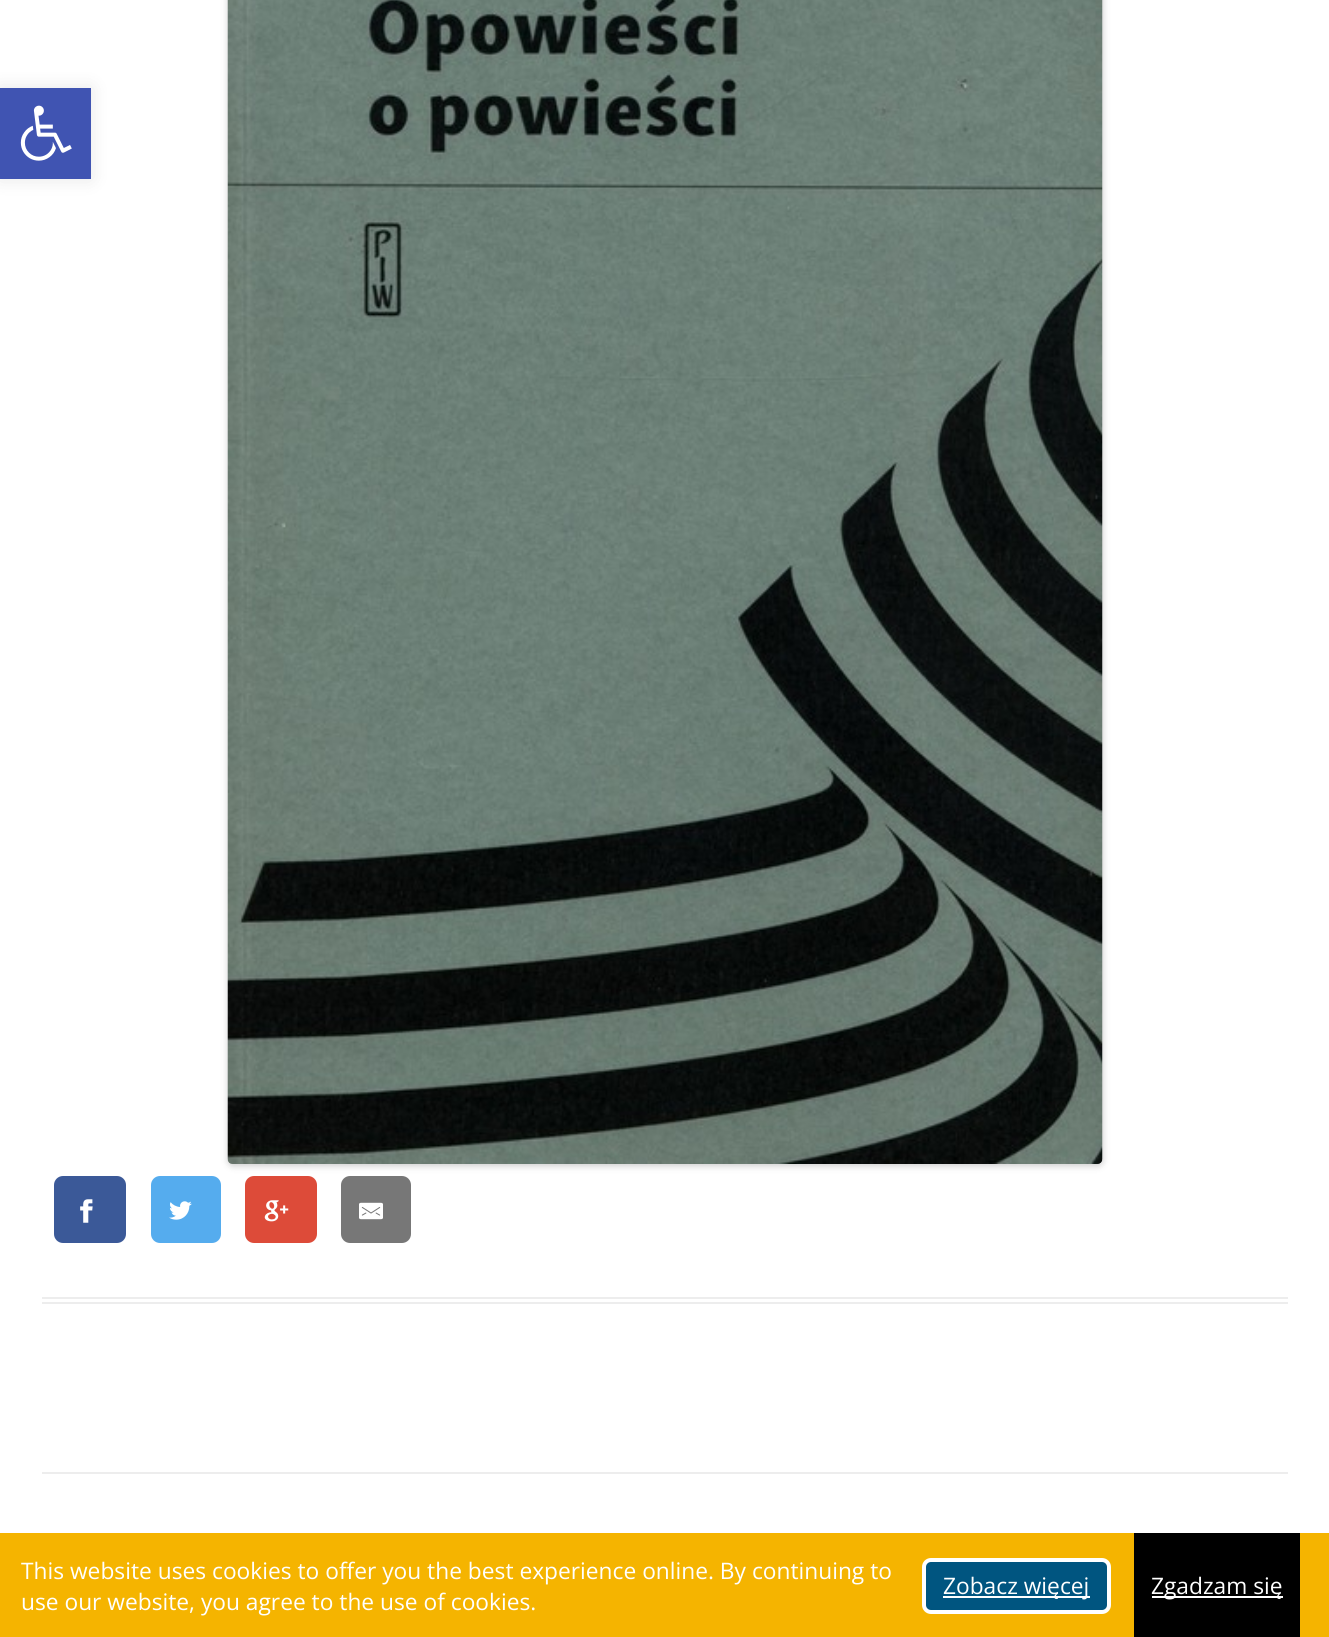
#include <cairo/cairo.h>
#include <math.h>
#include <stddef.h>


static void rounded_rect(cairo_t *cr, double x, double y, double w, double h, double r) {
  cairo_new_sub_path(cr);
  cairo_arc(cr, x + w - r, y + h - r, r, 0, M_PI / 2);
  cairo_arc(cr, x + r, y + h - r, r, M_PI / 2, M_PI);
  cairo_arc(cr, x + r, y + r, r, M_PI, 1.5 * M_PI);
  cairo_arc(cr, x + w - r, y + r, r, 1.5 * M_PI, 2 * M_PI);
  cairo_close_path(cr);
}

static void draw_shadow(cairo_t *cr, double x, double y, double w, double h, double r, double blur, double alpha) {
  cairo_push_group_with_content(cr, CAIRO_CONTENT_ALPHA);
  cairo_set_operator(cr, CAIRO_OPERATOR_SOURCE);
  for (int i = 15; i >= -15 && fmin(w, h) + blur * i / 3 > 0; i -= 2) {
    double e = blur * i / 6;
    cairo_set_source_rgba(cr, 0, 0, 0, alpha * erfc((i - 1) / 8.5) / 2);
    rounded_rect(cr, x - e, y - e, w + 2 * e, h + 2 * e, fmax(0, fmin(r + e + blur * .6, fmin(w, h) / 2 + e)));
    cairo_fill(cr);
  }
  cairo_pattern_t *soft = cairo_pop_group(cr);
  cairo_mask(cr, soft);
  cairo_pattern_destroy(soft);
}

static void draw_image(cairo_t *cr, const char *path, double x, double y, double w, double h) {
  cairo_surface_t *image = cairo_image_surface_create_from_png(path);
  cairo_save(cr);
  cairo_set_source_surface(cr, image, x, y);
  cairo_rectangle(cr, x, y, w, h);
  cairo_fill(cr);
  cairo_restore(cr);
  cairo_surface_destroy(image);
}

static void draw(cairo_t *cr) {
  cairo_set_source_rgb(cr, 1, 1, 1);
  cairo_paint(cr);
  cairo_set_source_rgb(cr, 237 / 255.0, 237 / 255.0, 237 / 255.0);
  cairo_rectangle(cr, 42, 1297, 1246, 2);
  cairo_fill(cr);
  cairo_rectangle(cr, 42, 1302, 1246, 2);
  cairo_fill(cr);
  cairo_set_source_rgb(cr, 0, 0, 0);
  draw_shadow(cr, 228, -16, 875, 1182, 5, 3.5, 0.2);
  draw_image(cr, "images/1.png", 227, 0, 876, 1164);
  cairo_set_source_rgb(cr, 59 / 255.0, 89 / 255.0, 152 / 255.0);
  rounded_rect(cr, 54, 1176, 72, 67, 9);
  cairo_fill(cr);
  draw_image(cr, "images/2.png", 80, 1199, 13, 24);
  cairo_set_source_rgb(cr, 85 / 255.0, 172 / 255.0, 238 / 255.0);
  rounded_rect(cr, 151, 1176, 70, 67, 9);
  cairo_fill(cr);
  draw_image(cr, "images/3.png", 169, 1201, 23, 19);
  cairo_set_source_rgb(cr, 221 / 255.0, 75 / 255.0, 57 / 255.0);
  rounded_rect(cr, 245, 1176, 72, 67, 9);
  cairo_fill(cr);
  draw_image(cr, "images/4.png", 264, 1200, 25, 22);
  cairo_set_source_rgb(cr, 119 / 255.0, 119 / 255.0, 119 / 255.0);
  rounded_rect(cr, 341, 1176, 70, 67, 9);
  cairo_fill(cr);
  draw_image(cr, "images/5.png", 359, 1202, 24, 18);
  cairo_set_source_rgb(cr, 237 / 255.0, 237 / 255.0, 237 / 255.0);
  cairo_rectangle(cr, 42, 1472, 1246, 2);
  cairo_fill(cr);
  cairo_set_source_rgb(cr, 0, 0, 0);
  draw_shadow(cr, 0, 88, 91, 91, 0, 9, 0.1);
  cairo_set_source_rgb(cr, 64 / 255.0, 84 / 255.0, 178 / 255.0);
  cairo_rectangle(cr, 0, 88, 91, 91);
  cairo_fill(cr);
  draw_image(cr, "images/6.png", 20, 105, 52, 56);
  cairo_set_source_rgb(cr, 245 / 255.0, 180 / 255.0, 0);
  cairo_rectangle(cr, 0, 1533, 1329, 104);
  cairo_fill(cr);
  cairo_set_source_rgb(cr, 0, 85 / 255.0, 128 / 255.0);
  rounded_rect(cr, 924, 1560, 185, 52, 7);
  cairo_fill_preserve(cr);
  cairo_set_source_rgb(cr, 1, 1, 1);
  cairo_set_line_width(cr, 4);
  cairo_stroke(cr);
  cairo_rectangle(cr, 943, 1596, 147, 2);
  cairo_fill(cr);
  cairo_set_source_rgb(cr, 0, 0, 0);
  cairo_rectangle(cr, 1134, 1533, 166, 104);
  cairo_fill(cr);
  cairo_set_source_rgb(cr, 1, 1, 1);
  cairo_rectangle(cr, 1152, 1596, 131, 2);
  cairo_fill(cr);
  cairo_select_font_face(cr, "Open Sans", CAIRO_FONT_SLANT_NORMAL, CAIRO_FONT_WEIGHT_NORMAL);
  cairo_set_font_size(cr, 22.75);
  cairo_move_to(cr, 21, 1579);
  cairo_show_text(cr, "This website uses cookies to offer you the best experience online. By continuing to");
  cairo_move_to(cr, 21, 1610);
  cairo_show_text(cr, "use our website, you agree to the use of cookies.");
  cairo_move_to(cr, 943, 1594);
  cairo_show_text(cr, "Zobacz więcej");
  cairo_move_to(cr, 1151, 1594);
  cairo_show_text(cr, "Zgadzam się");
}

int main(void) {
  cairo_surface_t *surface = cairo_image_surface_create(CAIRO_FORMAT_RGB24, 1329, 1637);
  cairo_t *cr = cairo_create(surface);
  cairo_font_options_t *options = cairo_font_options_create();
  cairo_font_options_set_hint_metrics(options, CAIRO_HINT_METRICS_OFF);
  cairo_font_options_set_hint_style(options, CAIRO_HINT_STYLE_NONE);
  cairo_set_font_options(cr, options);
  cairo_set_miter_limit(cr, 4);
  draw(cr);
  cairo_surface_write_to_png(surface, "out.png");
  cairo_font_options_destroy(options);
  cairo_destroy(cr);
  cairo_surface_destroy(surface);
  return 0;
}
